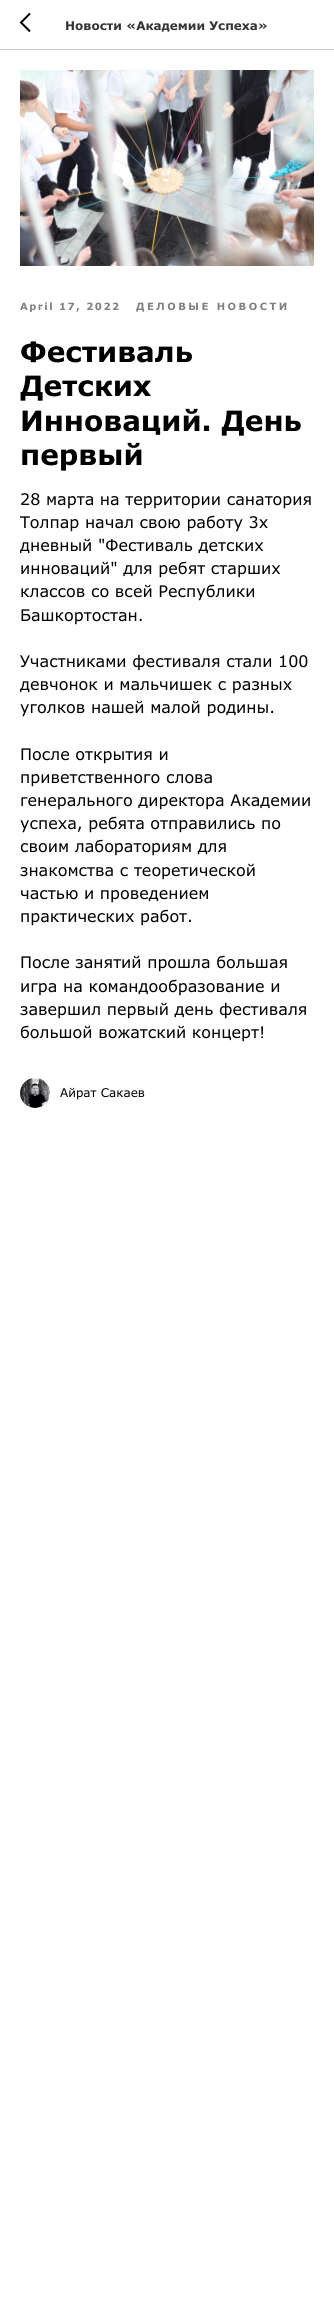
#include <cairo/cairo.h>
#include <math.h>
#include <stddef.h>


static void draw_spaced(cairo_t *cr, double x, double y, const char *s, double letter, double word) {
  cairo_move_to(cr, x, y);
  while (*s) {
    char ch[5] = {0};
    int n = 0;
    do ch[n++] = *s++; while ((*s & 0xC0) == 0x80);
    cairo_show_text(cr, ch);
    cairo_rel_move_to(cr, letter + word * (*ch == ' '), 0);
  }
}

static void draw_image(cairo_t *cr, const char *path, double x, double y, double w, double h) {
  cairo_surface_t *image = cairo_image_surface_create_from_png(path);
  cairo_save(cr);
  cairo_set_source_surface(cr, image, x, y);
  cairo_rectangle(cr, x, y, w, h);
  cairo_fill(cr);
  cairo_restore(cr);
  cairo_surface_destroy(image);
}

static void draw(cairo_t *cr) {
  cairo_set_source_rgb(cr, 1, 1, 1);
  cairo_paint(cr);
  cairo_set_source_rgb(cr, 204 / 255.0, 204 / 255.0, 204 / 255.0);
  cairo_rectangle(cr, 0, 49, 334, 1);
  cairo_fill(cr);
  cairo_new_path(cr);
  cairo_move_to(cr, 30, 31.5);
  cairo_line_to(cr, 21, 22.5);
  cairo_line_to(cr, 30, 13.5);
  cairo_set_source_rgb(cr, 0, 0, 0);
  cairo_stroke(cr);
  draw_image(cr, "images/1.png", 20, 70, 294, 196);
  draw_image(cr, "images/2.png", 20, 1078, 30, 30);
  cairo_select_font_face(cr, "Verdana", CAIRO_FONT_SLANT_NORMAL, CAIRO_FONT_WEIGHT_BOLD);
  cairo_set_font_size(cr, 12);
  cairo_set_source_rgb(cr, 51 / 255.0, 51 / 255.0, 51 / 255.0);
  cairo_move_to(cr, 65, 30);
  cairo_show_text(cr, "Новости «Академии Успеха»");
  cairo_set_font_size(cr, 10);
  cairo_set_source_rgb(cr, 128 / 255.0, 128 / 255.0, 128 / 255.0);
  draw_spaced(cr, 20, 310, "April 17, 2022", 1.5, 0);
  draw_spaced(cr, 136, 310, "ДЕЛОВЫЕ НОВОСТИ", 2.5, 0);
  cairo_set_font_size(cr, 28);
  cairo_set_source_rgb(cr, 0, 0, 0);
  cairo_move_to(cr, 20, 362);
  cairo_show_text(cr, "Фестиваль");
  cairo_move_to(cr, 20, 396);
  cairo_show_text(cr, "Детских");
  cairo_move_to(cr, 20, 431);
  cairo_show_text(cr, "Инноваций. День");
  cairo_move_to(cr, 20, 465);
  cairo_show_text(cr, "первый");
  cairo_select_font_face(cr, "Verdana", CAIRO_FONT_SLANT_NORMAL, CAIRO_FONT_WEIGHT_NORMAL);
  cairo_set_font_size(cr, 16);
  cairo_move_to(cr, 20, 505);
  cairo_show_text(cr, "28 марта на территории санатория");
  cairo_move_to(cr, 20, 528);
  cairo_show_text(cr, "Толпар начал свою работу 3х");
  cairo_move_to(cr, 20, 551);
  cairo_show_text(cr, "дневный \"Фестиваль детских");
  cairo_move_to(cr, 20, 574);
  cairo_show_text(cr, "инноваций\" для ребят старших");
  cairo_move_to(cr, 20, 597);
  cairo_show_text(cr, "классов со всей Республики");
  cairo_move_to(cr, 20, 621);
  cairo_show_text(cr, "Башкортостан.");
  cairo_move_to(cr, 20, 667);
  cairo_show_text(cr, "Участниками фестиваля стали 100");
  cairo_move_to(cr, 20, 690);
  cairo_show_text(cr, "девчонок и мальчишек с разных");
  cairo_move_to(cr, 20, 713);
  cairo_show_text(cr, "уголков нашей малой родины.");
  cairo_move_to(cr, 20, 760);
  cairo_show_text(cr, "После открытия и");
  cairo_move_to(cr, 20, 783);
  cairo_show_text(cr, "приветственного слова");
  cairo_move_to(cr, 20, 806);
  cairo_show_text(cr, "генерального директора Академии");
  cairo_move_to(cr, 20, 829);
  cairo_show_text(cr, "успеха, ребята отправились по");
  cairo_move_to(cr, 20, 852);
  cairo_show_text(cr, "своим лабораториям для");
  cairo_move_to(cr, 20, 876);
  cairo_show_text(cr, "знакомства с теоретической");
  cairo_move_to(cr, 20, 899);
  cairo_show_text(cr, "частью и проведением");
  cairo_move_to(cr, 20, 922);
  cairo_show_text(cr, "практических работ.");
  cairo_move_to(cr, 20, 968);
  cairo_show_text(cr, "После занятий прошла большая");
  cairo_move_to(cr, 20, 992);
  cairo_show_text(cr, "игра на командообразование и");
  cairo_move_to(cr, 20, 1015);
  cairo_show_text(cr, "завершил первый день фестиваля");
  cairo_move_to(cr, 20, 1038);
  cairo_show_text(cr, "большой вожатский концерт!");
  cairo_set_font_size(cr, 12);
  cairo_move_to(cr, 60, 1097);
  cairo_show_text(cr, "Айрат Сакаев");
}

int main(void) {
  cairo_surface_t *surface = cairo_image_surface_create(CAIRO_FORMAT_RGB24, 334, 2320);
  cairo_t *cr = cairo_create(surface);
  cairo_font_options_t *options = cairo_font_options_create();
  cairo_font_options_set_hint_metrics(options, CAIRO_HINT_METRICS_OFF);
  cairo_font_options_set_hint_style(options, CAIRO_HINT_STYLE_NONE);
  cairo_set_font_options(cr, options);
  cairo_set_miter_limit(cr, 4);
  draw(cr);
  cairo_surface_write_to_png(surface, "out.png");
  cairo_font_options_destroy(options);
  cairo_destroy(cr);
  cairo_surface_destroy(surface);
  return 0;
}
